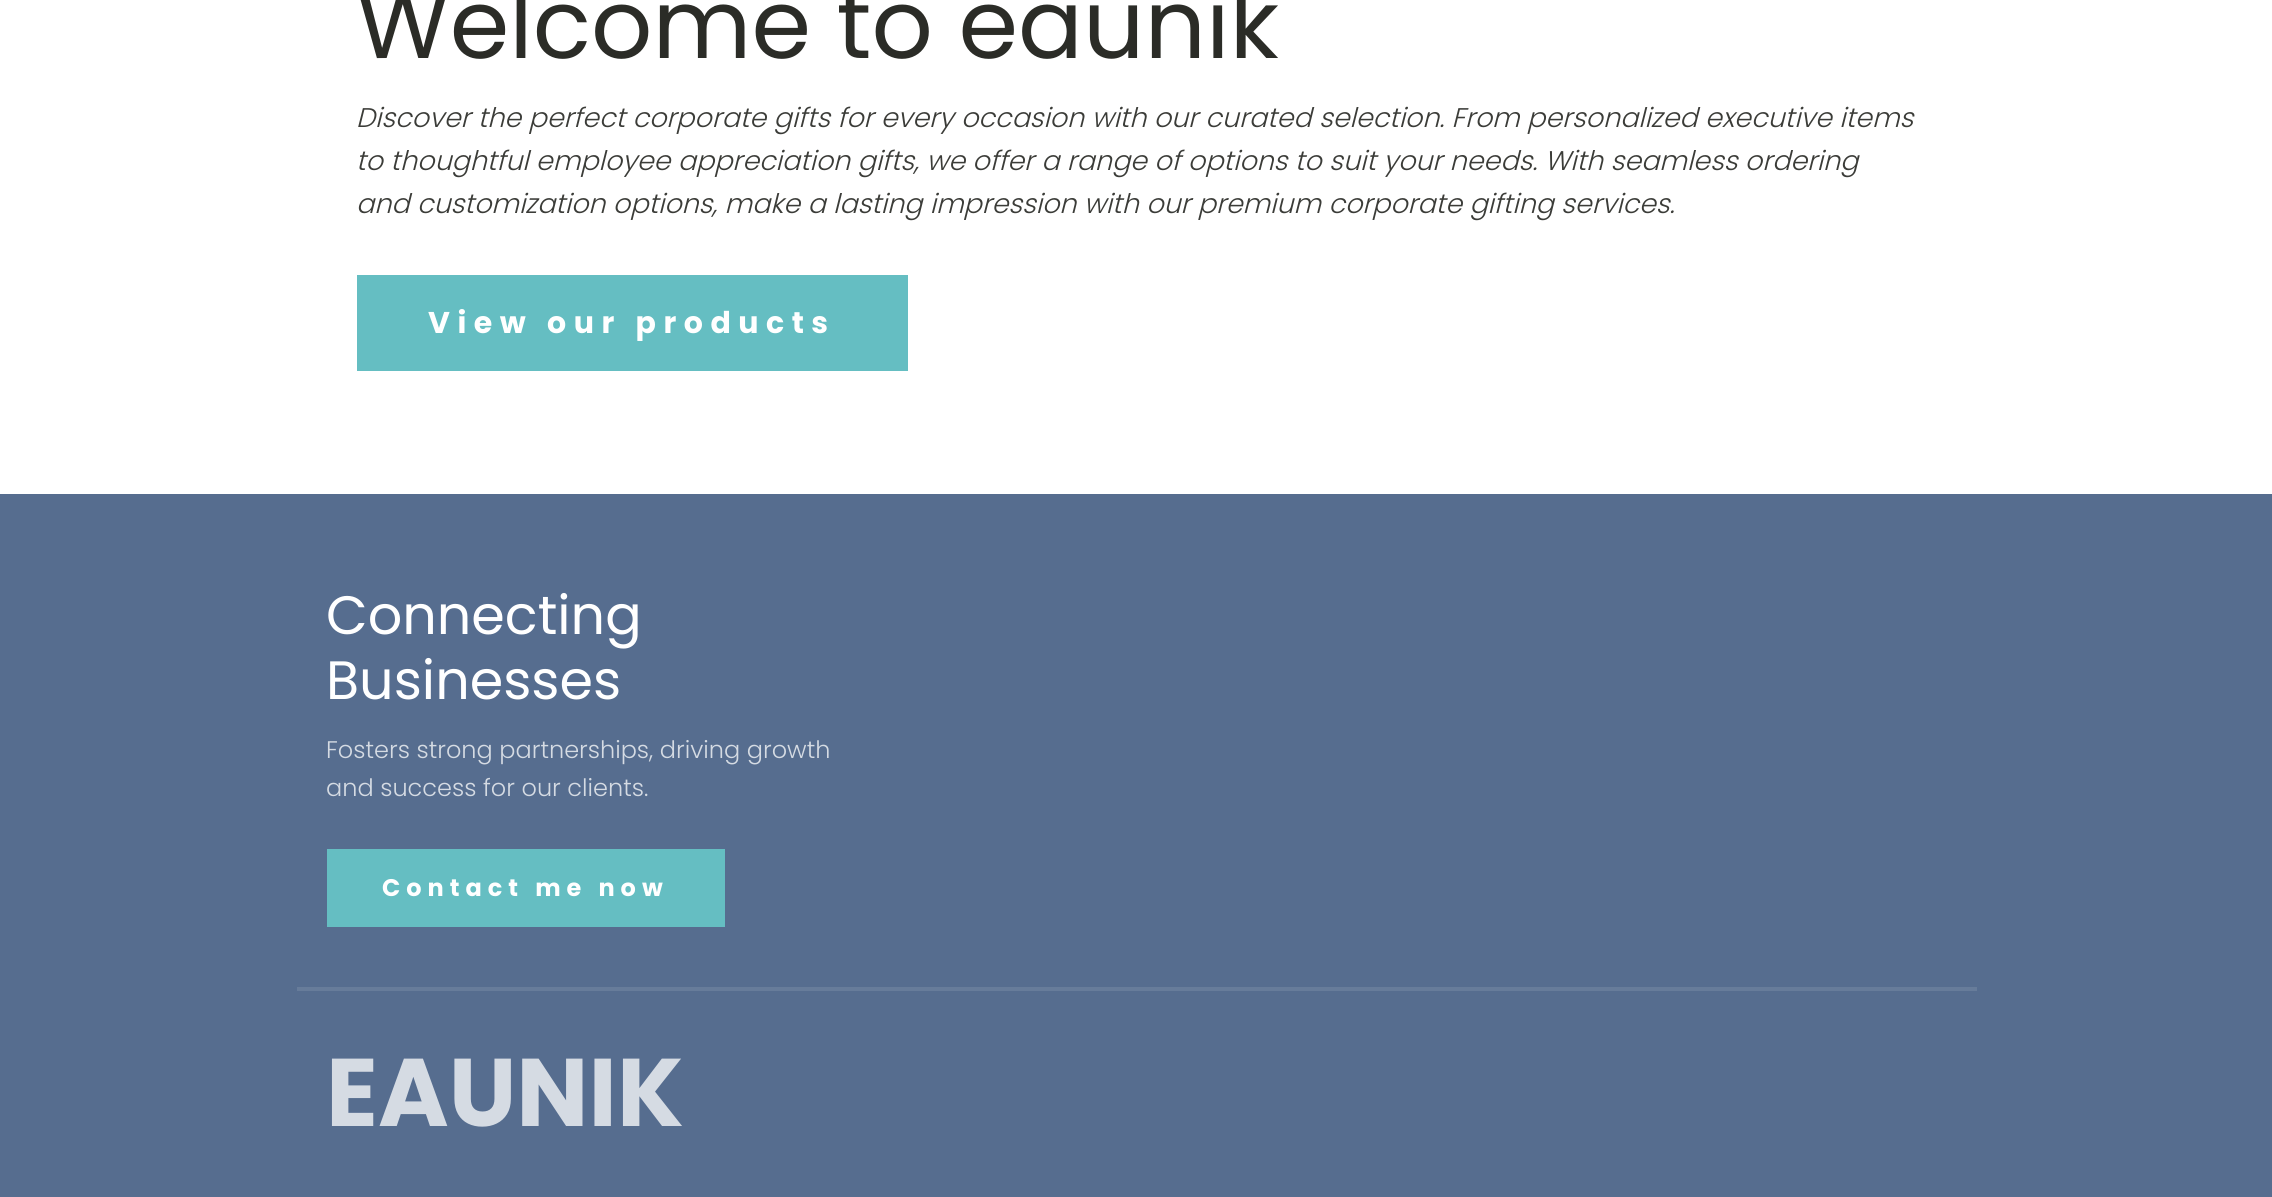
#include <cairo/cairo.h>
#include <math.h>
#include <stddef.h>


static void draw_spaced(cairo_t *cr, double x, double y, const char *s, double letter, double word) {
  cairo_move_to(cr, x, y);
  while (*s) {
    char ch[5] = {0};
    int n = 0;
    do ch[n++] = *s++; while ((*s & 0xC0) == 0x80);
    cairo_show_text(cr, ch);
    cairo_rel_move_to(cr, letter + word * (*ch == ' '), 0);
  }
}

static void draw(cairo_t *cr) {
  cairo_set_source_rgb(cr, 1, 1, 1);
  cairo_paint(cr);
  cairo_set_source_rgb(cr, 101 / 255.0, 190 / 255.0, 194 / 255.0);
  cairo_rectangle(cr, 357, 275, 551, 96);
  cairo_fill(cr);
  cairo_set_source_rgb(cr, 86 / 255.0, 109 / 255.0, 143 / 255.0);
  cairo_rectangle(cr, 0, 494, 2272, 703);
  cairo_fill(cr);
  cairo_set_source_rgb(cr, 103 / 255.0, 124 / 255.0, 154 / 255.0);
  cairo_rectangle(cr, 297, 987, 1680, 4);
  cairo_fill(cr);
  cairo_set_source_rgb(cr, 101 / 255.0, 190 / 255.0, 194 / 255.0);
  cairo_rectangle(cr, 327, 849, 398, 78);
  cairo_fill(cr);
  cairo_select_font_face(cr, "Poppins", CAIRO_FONT_SLANT_NORMAL, CAIRO_FONT_WEIGHT_NORMAL);
  cairo_set_font_size(cr, 96);
  cairo_set_source_rgb(cr, 43 / 255.0, 44 / 255.0, 39 / 255.0);
  cairo_move_to(cr, 356, 58);
  cairo_show_text(cr, "Welcome to eaunik");
  cairo_select_font_face(cr, "Poppins Light", CAIRO_FONT_SLANT_ITALIC, CAIRO_FONT_WEIGHT_NORMAL);
  cairo_set_font_size(cr, 27);
  cairo_set_source_rgb(cr, 59 / 255.0, 60 / 255.0, 56 / 255.0);
  cairo_move_to(cr, 356, 127);
  cairo_show_text(cr, "Discover the perfect corporate gifts for every occasion with our curated selection. From personalized executive items");
  cairo_move_to(cr, 356, 170);
  cairo_show_text(cr, "to thoughtful employee appreciation gifts, we offer a range of options to suit your needs. With seamless ordering");
  cairo_move_to(cr, 356, 213);
  cairo_show_text(cr, "and customization options, make a lasting impression with our premium corporate gifting services.");
  cairo_select_font_face(cr, "Poppins", CAIRO_FONT_SLANT_NORMAL, CAIRO_FONT_WEIGHT_BOLD);
  cairo_set_font_size(cr, 30);
  cairo_set_source_rgb(cr, 1, 1, 1);
  draw_spaced(cr, 428, 333, "View our products", 7.5, 0);
  cairo_select_font_face(cr, "Poppins", CAIRO_FONT_SLANT_NORMAL, CAIRO_FONT_WEIGHT_NORMAL);
  cairo_set_font_size(cr, 54);
  cairo_move_to(cr, 326, 634);
  cairo_show_text(cr, "Connecting");
  cairo_move_to(cr, 326, 699);
  cairo_show_text(cr, "Businesses");
  cairo_select_font_face(cr, "Poppins Light", CAIRO_FONT_SLANT_NORMAL, CAIRO_FONT_WEIGHT_NORMAL);
  cairo_set_font_size(cr, 24);
  cairo_set_source_rgb(cr, 213 / 255.0, 219 / 255.0, 227 / 255.0);
  cairo_move_to(cr, 326, 758);
  cairo_show_text(cr, "Fosters strong partnerships, driving growth");
  cairo_move_to(cr, 326, 796);
  cairo_show_text(cr, "and success for our clients.");
  cairo_select_font_face(cr, "Poppins", CAIRO_FONT_SLANT_NORMAL, CAIRO_FONT_WEIGHT_BOLD);
  cairo_set_source_rgb(cr, 1, 1, 1);
  draw_spaced(cr, 382, 896, "Contact me now", 6, 0);
  cairo_set_font_size(cr, 96);
  cairo_set_source_rgb(cr, 213 / 255.0, 219 / 255.0, 227 / 255.0);
  cairo_move_to(cr, 326, 1126);
  cairo_show_text(cr, "EAUNIK");
}

int main(void) {
  cairo_surface_t *surface = cairo_image_surface_create(CAIRO_FORMAT_RGB24, 2272, 1197);
  cairo_t *cr = cairo_create(surface);
  cairo_font_options_t *options = cairo_font_options_create();
  cairo_font_options_set_hint_metrics(options, CAIRO_HINT_METRICS_OFF);
  cairo_font_options_set_hint_style(options, CAIRO_HINT_STYLE_NONE);
  cairo_set_font_options(cr, options);
  cairo_set_miter_limit(cr, 4);
  draw(cr);
  cairo_surface_write_to_png(surface, "out.png");
  cairo_font_options_destroy(options);
  cairo_destroy(cr);
  cairo_surface_destroy(surface);
  return 0;
}
